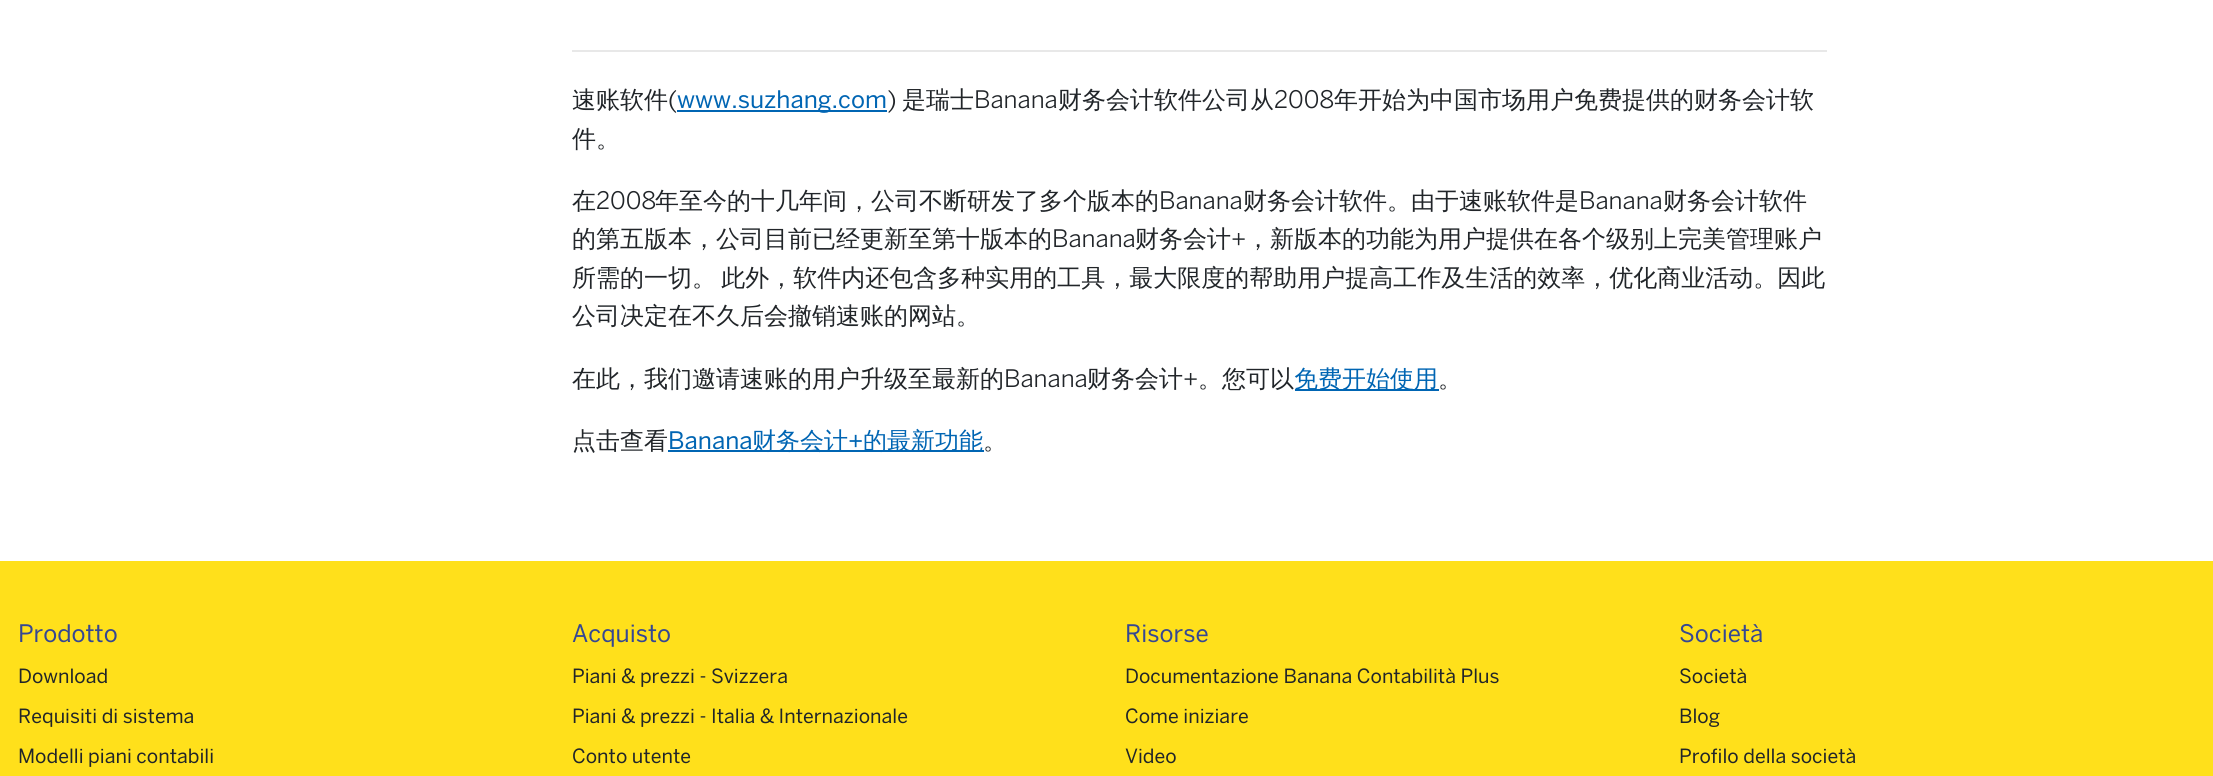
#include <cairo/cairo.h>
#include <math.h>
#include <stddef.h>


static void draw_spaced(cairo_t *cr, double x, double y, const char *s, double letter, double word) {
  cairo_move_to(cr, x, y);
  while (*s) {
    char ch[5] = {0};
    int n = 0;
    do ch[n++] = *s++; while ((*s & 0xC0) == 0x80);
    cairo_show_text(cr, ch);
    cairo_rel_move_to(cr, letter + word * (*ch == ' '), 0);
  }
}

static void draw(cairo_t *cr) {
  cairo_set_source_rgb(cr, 1, 1, 1);
  cairo_paint(cr);
  cairo_set_source_rgb(cr, 232 / 255.0, 232 / 255.0, 232 / 255.0);
  cairo_rectangle(cr, 572, 50, 1255, 2);
  cairo_fill(cr);
  cairo_set_source_rgb(cr, 0, 101 / 255.0, 179 / 255.0);
  cairo_rectangle(cr, 677, 110, 210, 2);
  cairo_fill(cr);
  cairo_rectangle(cr, 1295, 389, 144, 2);
  cairo_fill(cr);
  cairo_rectangle(cr, 668, 450, 316, 2);
  cairo_fill(cr);
  cairo_set_source_rgb(cr, 1, 224 / 255.0, 27 / 255.0);
  cairo_rectangle(cr, 0, 561, 2213, 215);
  cairo_fill(cr);
  cairo_select_font_face(cr, "WenQuanYi Zen Hei Medium", CAIRO_FONT_SLANT_NORMAL, CAIRO_FONT_WEIGHT_NORMAL);
  cairo_set_font_size(cr, 24);
  cairo_set_source_rgb(cr, 33 / 255.0, 37 / 255.0, 41 / 255.0);
  cairo_move_to(cr, 572, 108);
  cairo_show_text(cr, "速账软件");
  cairo_select_font_face(cr, "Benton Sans", CAIRO_FONT_SLANT_NORMAL, CAIRO_FONT_WEIGHT_NORMAL);
  cairo_move_to(cr, 668, 108);
  cairo_show_text(cr, "(");
  cairo_select_font_face(cr, "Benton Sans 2", CAIRO_FONT_SLANT_NORMAL, CAIRO_FONT_WEIGHT_NORMAL);
  cairo_set_source_rgb(cr, 0, 101 / 255.0, 179 / 255.0);
  cairo_move_to(cr, 677, 108);
  cairo_show_text(cr, "www.suzhang.com");
  cairo_select_font_face(cr, "Benton Sans", CAIRO_FONT_SLANT_NORMAL, CAIRO_FONT_WEIGHT_NORMAL);
  cairo_set_source_rgb(cr, 33 / 255.0, 37 / 255.0, 41 / 255.0);
  cairo_move_to(cr, 887, 108);
  cairo_show_text(cr, ")");
  cairo_select_font_face(cr, "WenQuanYi Zen Hei Medium", CAIRO_FONT_SLANT_NORMAL, CAIRO_FONT_WEIGHT_NORMAL);
  cairo_move_to(cr, 902, 108);
  cairo_show_text(cr, "是瑞士");
  cairo_select_font_face(cr, "Benton Sans", CAIRO_FONT_SLANT_NORMAL, CAIRO_FONT_WEIGHT_NORMAL);
  cairo_move_to(cr, 974, 108);
  cairo_show_text(cr, "Banana");
  cairo_select_font_face(cr, "WenQuanYi Zen Hei Medium", CAIRO_FONT_SLANT_NORMAL, CAIRO_FONT_WEIGHT_NORMAL);
  cairo_move_to(cr, 1058, 108);
  cairo_show_text(cr, "财务会计软件公司从");
  cairo_select_font_face(cr, "Benton Sans", CAIRO_FONT_SLANT_NORMAL, CAIRO_FONT_WEIGHT_NORMAL);
  cairo_move_to(cr, 1274, 108);
  cairo_show_text(cr, "2008");
  cairo_select_font_face(cr, "WenQuanYi Zen Hei Medium", CAIRO_FONT_SLANT_NORMAL, CAIRO_FONT_WEIGHT_NORMAL);
  cairo_move_to(cr, 1334, 108);
  cairo_show_text(cr, "年开始为中国市场用户免费提供的财务会计软");
  cairo_move_to(cr, 572, 147);
  cairo_show_text(cr, "件。");
  cairo_move_to(cr, 572, 209);
  cairo_show_text(cr, "在");
  cairo_select_font_face(cr, "Benton Sans", CAIRO_FONT_SLANT_NORMAL, CAIRO_FONT_WEIGHT_NORMAL);
  cairo_move_to(cr, 596, 209);
  cairo_show_text(cr, "2008");
  cairo_select_font_face(cr, "WenQuanYi Zen Hei Medium", CAIRO_FONT_SLANT_NORMAL, CAIRO_FONT_WEIGHT_NORMAL);
  cairo_move_to(cr, 655, 209);
  cairo_show_text(cr, "年至今的十几年间，公司不断研发了多个版本的");
  cairo_select_font_face(cr, "Benton Sans", CAIRO_FONT_SLANT_NORMAL, CAIRO_FONT_WEIGHT_NORMAL);
  cairo_move_to(cr, 1159, 209);
  cairo_show_text(cr, "Banana");
  cairo_select_font_face(cr, "WenQuanYi Zen Hei Medium", CAIRO_FONT_SLANT_NORMAL, CAIRO_FONT_WEIGHT_NORMAL);
  cairo_move_to(cr, 1243, 209);
  cairo_show_text(cr, "财务会计软件。由于速账软件是");
  cairo_select_font_face(cr, "Benton Sans", CAIRO_FONT_SLANT_NORMAL, CAIRO_FONT_WEIGHT_NORMAL);
  cairo_move_to(cr, 1579, 209);
  cairo_show_text(cr, "Banana");
  cairo_select_font_face(cr, "WenQuanYi Zen Hei Medium", CAIRO_FONT_SLANT_NORMAL, CAIRO_FONT_WEIGHT_NORMAL);
  cairo_move_to(cr, 1663, 209);
  cairo_show_text(cr, "财务会计软件");
  cairo_move_to(cr, 572, 247);
  cairo_show_text(cr, "的第五版本，公司目前已经更新至第十版本的");
  cairo_select_font_face(cr, "Benton Sans", CAIRO_FONT_SLANT_NORMAL, CAIRO_FONT_WEIGHT_NORMAL);
  cairo_move_to(cr, 1052, 247);
  cairo_show_text(cr, "Banana");
  cairo_select_font_face(cr, "WenQuanYi Zen Hei Medium", CAIRO_FONT_SLANT_NORMAL, CAIRO_FONT_WEIGHT_NORMAL);
  cairo_move_to(cr, 1135, 247);
  cairo_show_text(cr, "财务会计");
  cairo_select_font_face(cr, "Benton Sans", CAIRO_FONT_SLANT_NORMAL, CAIRO_FONT_WEIGHT_NORMAL);
  cairo_move_to(cr, 1231, 247);
  cairo_show_text(cr, "+");
  cairo_select_font_face(cr, "WenQuanYi Zen Hei Medium", CAIRO_FONT_SLANT_NORMAL, CAIRO_FONT_WEIGHT_NORMAL);
  cairo_move_to(cr, 1246, 247);
  cairo_show_text(cr, "，新版本的功能为用户提供在各个级别上完美管理账户");
  draw_spaced(cr, 572, 286, "所需的一切。 此外，软件内还包含多种实用的工具，最大限度的帮助用户提高工作及生活的效率，优化商业活动。因此", 0, -2);
  cairo_move_to(cr, 572, 324);
  cairo_show_text(cr, "公司决定在不久后会撤销速账的网站。");
  cairo_move_to(cr, 572, 387);
  cairo_show_text(cr, "在此，我们邀请速账的用户升级至最新的");
  cairo_select_font_face(cr, "Benton Sans", CAIRO_FONT_SLANT_NORMAL, CAIRO_FONT_WEIGHT_NORMAL);
  cairo_move_to(cr, 1004, 387);
  cairo_show_text(cr, "Banana");
  cairo_select_font_face(cr, "WenQuanYi Zen Hei Medium", CAIRO_FONT_SLANT_NORMAL, CAIRO_FONT_WEIGHT_NORMAL);
  cairo_move_to(cr, 1087, 387);
  cairo_show_text(cr, "财务会计");
  cairo_select_font_face(cr, "Benton Sans", CAIRO_FONT_SLANT_NORMAL, CAIRO_FONT_WEIGHT_NORMAL);
  cairo_move_to(cr, 1183, 387);
  cairo_show_text(cr, "+");
  cairo_select_font_face(cr, "WenQuanYi Zen Hei Medium", CAIRO_FONT_SLANT_NORMAL, CAIRO_FONT_WEIGHT_NORMAL);
  cairo_move_to(cr, 1198, 387);
  cairo_show_text(cr, "。您可以");
  cairo_set_source_rgb(cr, 0, 101 / 255.0, 179 / 255.0);
  cairo_move_to(cr, 1294, 387);
  cairo_show_text(cr, "免费开始使用");
  cairo_set_source_rgb(cr, 33 / 255.0, 37 / 255.0, 41 / 255.0);
  cairo_move_to(cr, 1438, 387);
  cairo_show_text(cr, "。");
  cairo_move_to(cr, 572, 449);
  cairo_show_text(cr, "点击查看");
  cairo_select_font_face(cr, "Benton Sans 2", CAIRO_FONT_SLANT_NORMAL, CAIRO_FONT_WEIGHT_NORMAL);
  cairo_set_source_rgb(cr, 0, 101 / 255.0, 179 / 255.0);
  cairo_move_to(cr, 668, 449);
  cairo_show_text(cr, "Banana");
  cairo_select_font_face(cr, "WenQuanYi Zen Hei Medium", CAIRO_FONT_SLANT_NORMAL, CAIRO_FONT_WEIGHT_NORMAL);
  cairo_move_to(cr, 752, 449);
  cairo_show_text(cr, "财务会计");
  cairo_select_font_face(cr, "Benton Sans 2", CAIRO_FONT_SLANT_NORMAL, CAIRO_FONT_WEIGHT_NORMAL);
  cairo_move_to(cr, 848, 449);
  cairo_show_text(cr, "+");
  cairo_select_font_face(cr, "WenQuanYi Zen Hei Medium", CAIRO_FONT_SLANT_NORMAL, CAIRO_FONT_WEIGHT_NORMAL);
  cairo_move_to(cr, 863, 449);
  cairo_show_text(cr, "的最新功能");
  cairo_set_source_rgb(cr, 33 / 255.0, 37 / 255.0, 41 / 255.0);
  cairo_move_to(cr, 983, 449);
  cairo_show_text(cr, "。");
  cairo_select_font_face(cr, "Benton Sans 2", CAIRO_FONT_SLANT_NORMAL, CAIRO_FONT_WEIGHT_NORMAL);
  cairo_set_source_rgb(cr, 53 / 255.0, 71 / 255.0, 147 / 255.0);
  cairo_move_to(cr, 18, 642);
  cairo_show_text(cr, "Prodotto");
  cairo_set_font_size(cr, 19.5);
  cairo_set_source_rgb(cr, 33 / 255.0, 37 / 255.0, 41 / 255.0);
  cairo_move_to(cr, 18, 683);
  cairo_show_text(cr, "Download");
  cairo_move_to(cr, 18, 723);
  cairo_show_text(cr, "Requisiti di sistema");
  cairo_move_to(cr, 18, 763);
  cairo_show_text(cr, "Modelli piani contabili");
  cairo_set_font_size(cr, 24);
  cairo_set_source_rgb(cr, 53 / 255.0, 71 / 255.0, 147 / 255.0);
  cairo_move_to(cr, 572, 642);
  cairo_show_text(cr, "Acquisto");
  cairo_set_font_size(cr, 19.5);
  cairo_set_source_rgb(cr, 33 / 255.0, 37 / 255.0, 41 / 255.0);
  cairo_move_to(cr, 572, 683);
  cairo_show_text(cr, "Piani & prezzi - Svizzera");
  cairo_move_to(cr, 572, 723);
  cairo_show_text(cr, "Piani & prezzi - Italia & Internazionale");
  cairo_move_to(cr, 572, 763);
  cairo_show_text(cr, "Conto utente");
  cairo_set_font_size(cr, 24);
  cairo_set_source_rgb(cr, 53 / 255.0, 71 / 255.0, 147 / 255.0);
  cairo_move_to(cr, 1125, 642);
  cairo_show_text(cr, "Risorse");
  cairo_set_font_size(cr, 19.5);
  cairo_set_source_rgb(cr, 33 / 255.0, 37 / 255.0, 41 / 255.0);
  cairo_move_to(cr, 1125, 683);
  cairo_show_text(cr, "Documentazione Banana Contabilità Plus");
  cairo_move_to(cr, 1125, 723);
  cairo_show_text(cr, "Come iniziare");
  cairo_move_to(cr, 1125, 763);
  cairo_show_text(cr, "Video");
  cairo_set_font_size(cr, 24);
  cairo_set_source_rgb(cr, 53 / 255.0, 71 / 255.0, 147 / 255.0);
  cairo_move_to(cr, 1679, 642);
  cairo_show_text(cr, "Società");
  cairo_set_font_size(cr, 19.5);
  cairo_set_source_rgb(cr, 33 / 255.0, 37 / 255.0, 41 / 255.0);
  cairo_move_to(cr, 1679, 683);
  cairo_show_text(cr, "Società");
  cairo_move_to(cr, 1679, 723);
  cairo_show_text(cr, "Blog");
  cairo_move_to(cr, 1679, 763);
  cairo_show_text(cr, "Profilo della società");
}

int main(void) {
  cairo_surface_t *surface = cairo_image_surface_create(CAIRO_FORMAT_RGB24, 2213, 776);
  cairo_t *cr = cairo_create(surface);
  cairo_font_options_t *options = cairo_font_options_create();
  cairo_font_options_set_hint_metrics(options, CAIRO_HINT_METRICS_OFF);
  cairo_font_options_set_hint_style(options, CAIRO_HINT_STYLE_NONE);
  cairo_set_font_options(cr, options);
  cairo_set_miter_limit(cr, 4);
  draw(cr);
  cairo_surface_write_to_png(surface, "out.png");
  cairo_font_options_destroy(options);
  cairo_destroy(cr);
  cairo_surface_destroy(surface);
  return 0;
}
